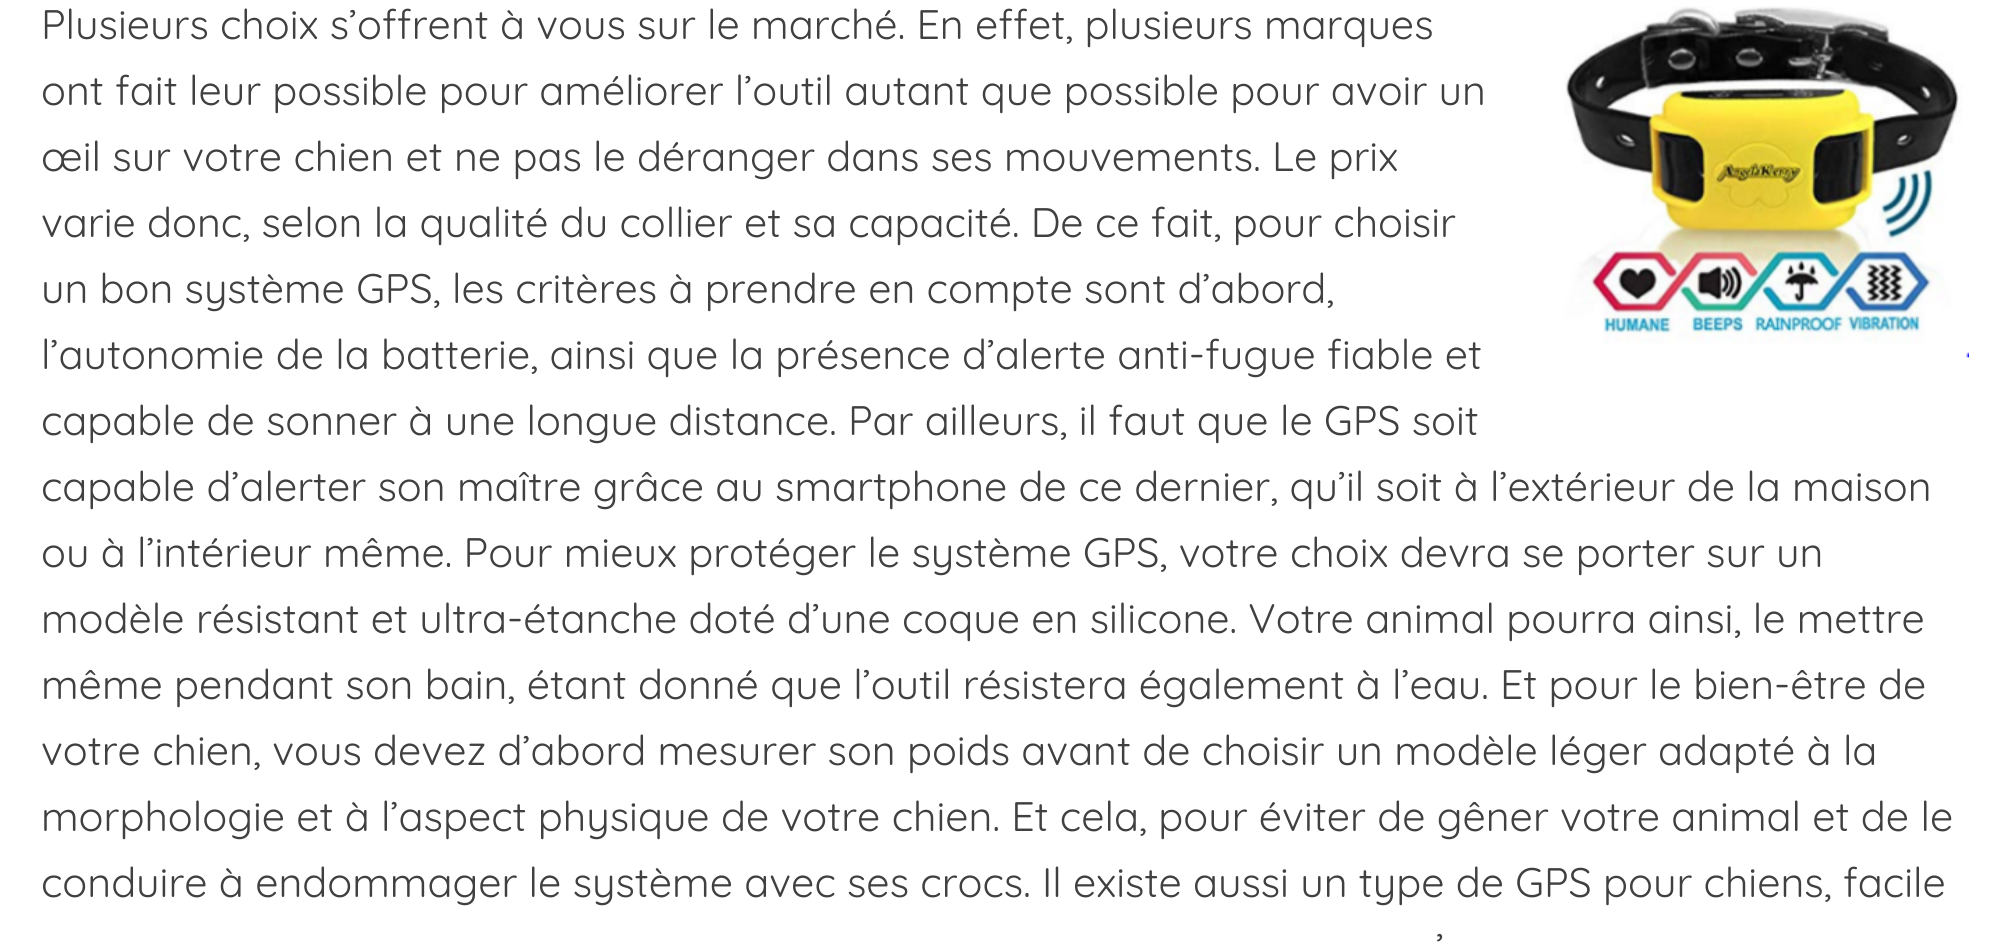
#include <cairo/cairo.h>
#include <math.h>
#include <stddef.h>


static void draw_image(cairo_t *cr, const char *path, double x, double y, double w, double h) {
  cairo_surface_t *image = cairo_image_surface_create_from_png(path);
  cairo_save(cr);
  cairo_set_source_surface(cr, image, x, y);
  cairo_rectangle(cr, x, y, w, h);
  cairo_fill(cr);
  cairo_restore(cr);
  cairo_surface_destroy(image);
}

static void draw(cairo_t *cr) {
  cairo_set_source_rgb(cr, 1, 1, 1);
  cairo_paint(cr);
  draw_image(cr, "images/1.png", 1564, 6, 405, 352);
  cairo_select_font_face(cr, "Quicksand", CAIRO_FONT_SLANT_NORMAL, CAIRO_FONT_WEIGHT_NORMAL);
  cairo_set_font_size(cr, 41.25);
  cairo_set_source_rgb(cr, 64 / 255.0, 64 / 255.0, 64 / 255.0);
  cairo_move_to(cr, 41, 39);
  cairo_show_text(cr, "Plusieurs choix s’offrent à vous sur le marché. En effet, plusieurs marques");
  cairo_move_to(cr, 41, 105);
  cairo_show_text(cr, "ont fait leur possible pour améliorer l’outil autant que possible pour avoir un");
  cairo_move_to(cr, 41, 171);
  cairo_show_text(cr, "œil sur votre chien et ne pas le déranger dans ses mouvements. Le prix");
  cairo_move_to(cr, 41, 237);
  cairo_show_text(cr, "varie donc, selon la qualité du collier et sa capacité. De ce fait, pour choisir");
  cairo_move_to(cr, 41, 303);
  cairo_show_text(cr, "un bon système GPS, les critères à prendre en compte sont d’abord,");
  cairo_move_to(cr, 41, 369);
  cairo_show_text(cr, "l’autonomie de la batterie, ainsi que la présence d’alerte anti-fugue fiable et");
  cairo_move_to(cr, 41, 435);
  cairo_show_text(cr, "capable de sonner à une longue distance. Par ailleurs, il faut que le GPS soit");
  cairo_move_to(cr, 41, 501);
  cairo_show_text(cr, "capable d’alerter son maître grâce au smartphone de ce dernier, qu’il soit à l’extérieur de la maison");
  cairo_move_to(cr, 41, 567);
  cairo_show_text(cr, "ou à l’intérieur même. Pour mieux protéger le système GPS, votre choix devra se porter sur un");
  cairo_move_to(cr, 41, 633);
  cairo_show_text(cr, "modèle résistant et ultra-étanche doté d’une coque en silicone. Votre animal pourra ainsi, le mettre");
  cairo_move_to(cr, 41, 699);
  cairo_show_text(cr, "même pendant son bain, étant donné que l’outil résistera également à l’eau. Et pour le bien-être de");
  cairo_move_to(cr, 41, 765);
  cairo_show_text(cr, "votre chien, vous devez d’abord mesurer son poids avant de choisir un modèle léger adapté à la");
  cairo_move_to(cr, 41, 831);
  cairo_show_text(cr, "morphologie et à l’aspect physique de votre chien. Et cela, pour éviter de gêner votre animal et de le");
  cairo_move_to(cr, 41, 897);
  cairo_show_text(cr, "conduire à endommager le système avec ses crocs. Il existe aussi un type de GPS pour chiens, facile");
  cairo_move_to(cr, 1436, 963);
  cairo_show_text(cr, "’");
}

int main(void) {
  cairo_surface_t *surface = cairo_image_surface_create(CAIRO_FORMAT_RGB24, 2009, 950);
  cairo_t *cr = cairo_create(surface);
  cairo_font_options_t *options = cairo_font_options_create();
  cairo_font_options_set_hint_metrics(options, CAIRO_HINT_METRICS_OFF);
  cairo_font_options_set_hint_style(options, CAIRO_HINT_STYLE_NONE);
  cairo_set_font_options(cr, options);
  cairo_set_miter_limit(cr, 4);
  draw(cr);
  cairo_surface_write_to_png(surface, "out.png");
  cairo_font_options_destroy(options);
  cairo_destroy(cr);
  cairo_surface_destroy(surface);
  return 0;
}
